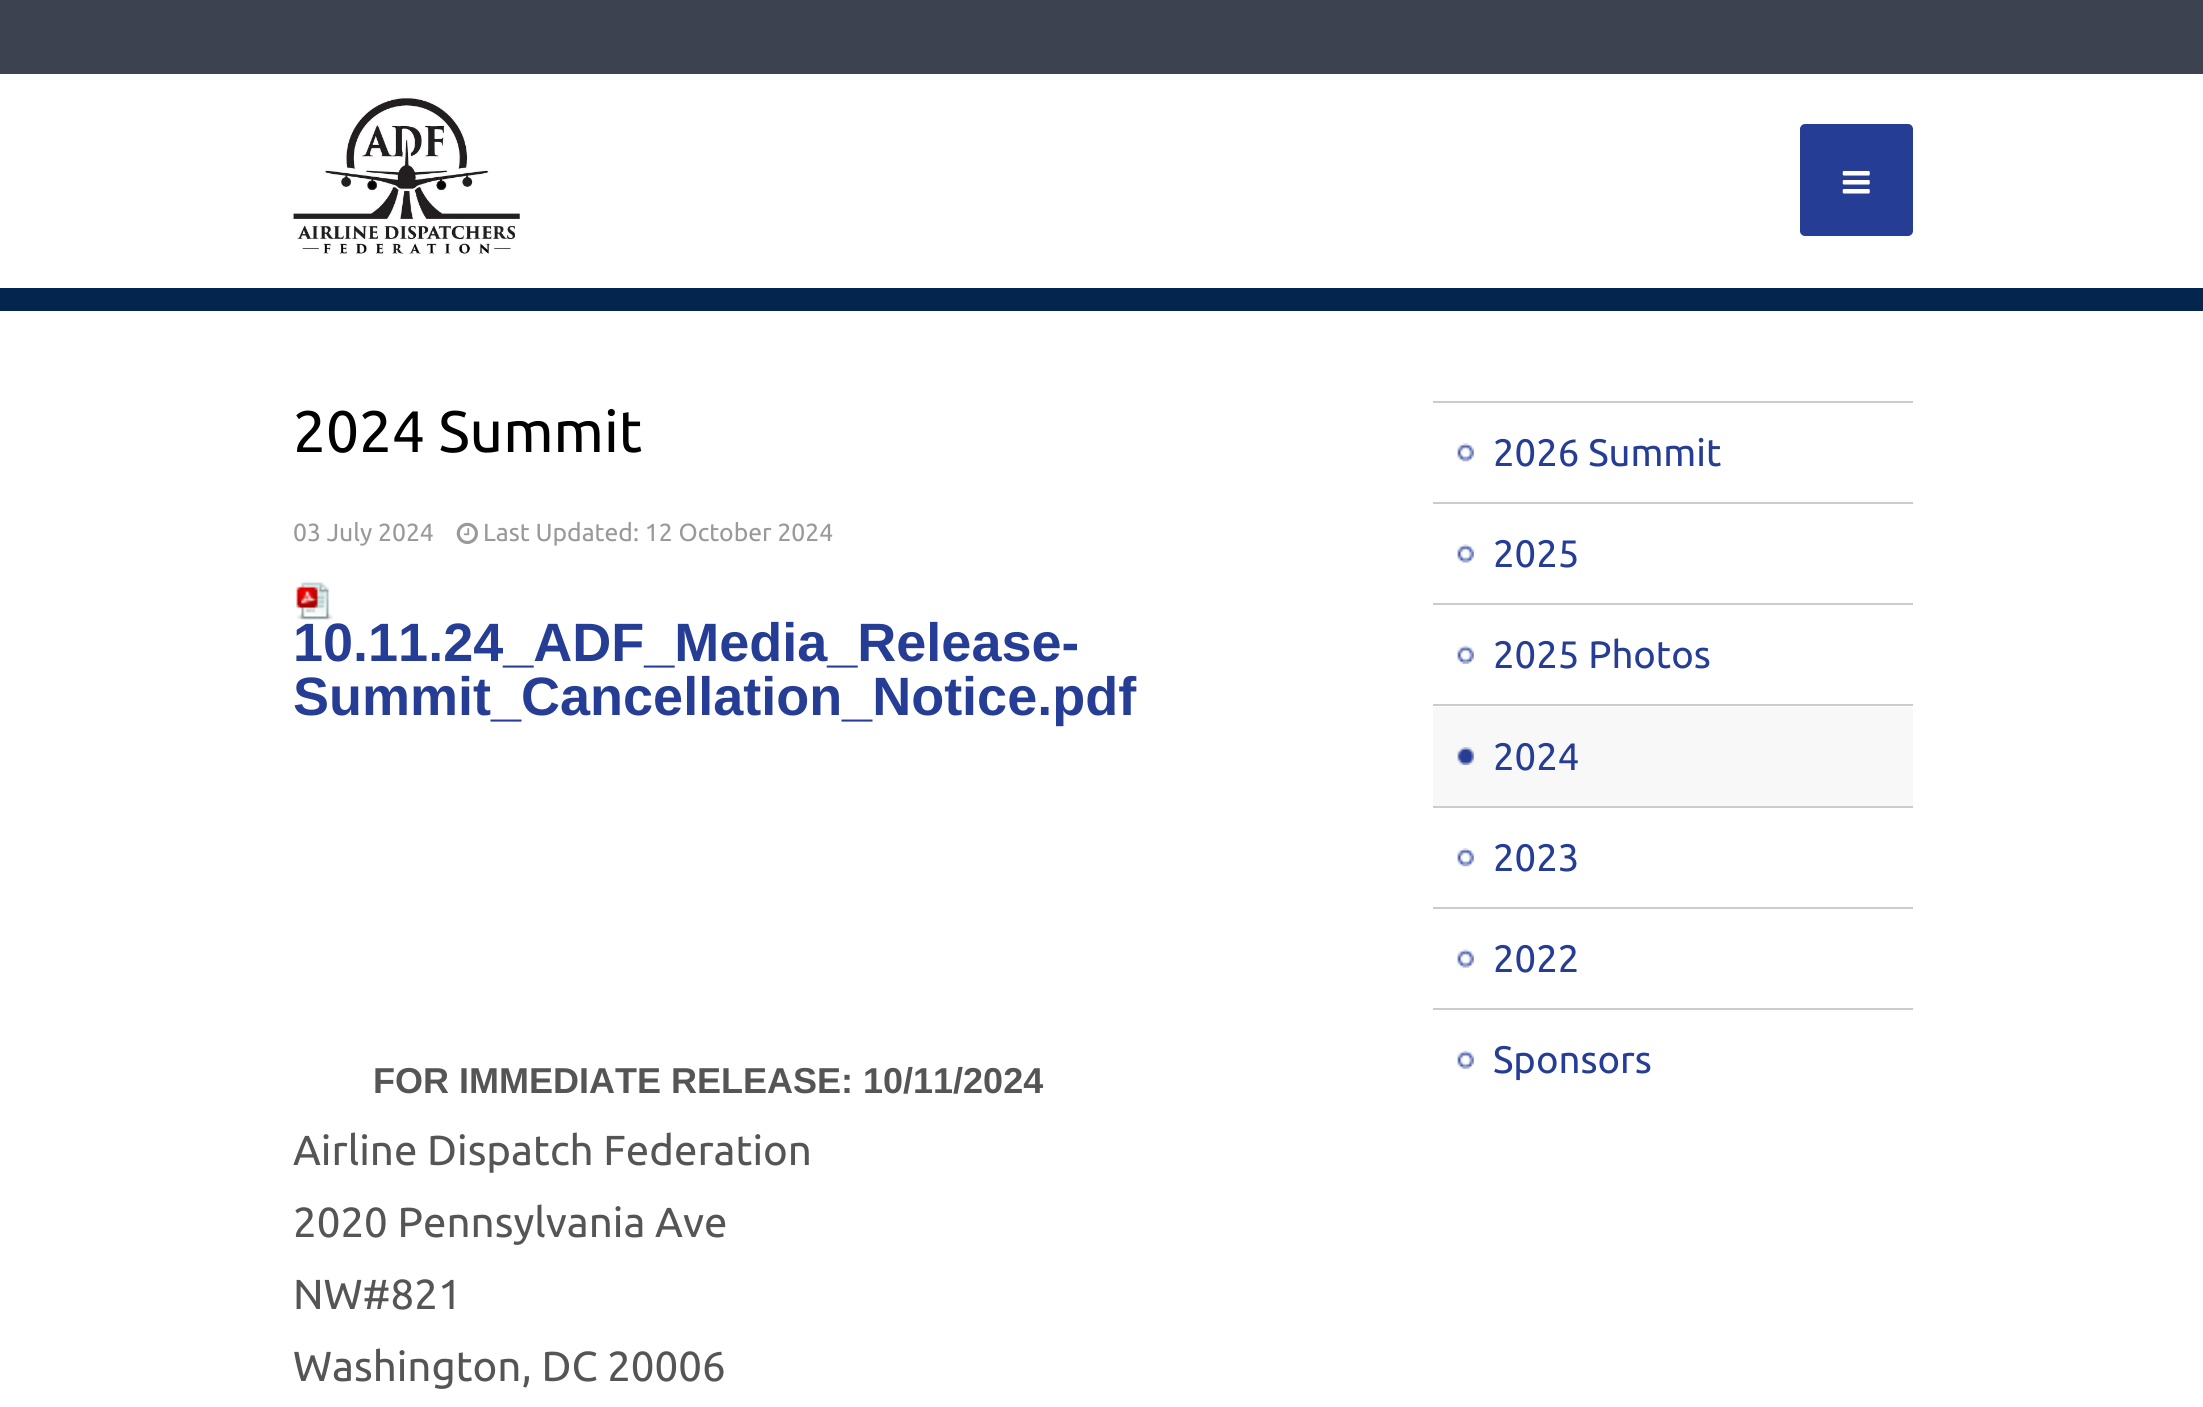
#include <cairo/cairo.h>
#include <math.h>
#include <stddef.h>


static void rounded_rect(cairo_t *cr, double x, double y, double w, double h, double r) {
  cairo_new_sub_path(cr);
  cairo_arc(cr, x + w - r, y + h - r, r, 0, M_PI / 2);
  cairo_arc(cr, x + r, y + h - r, r, M_PI / 2, M_PI);
  cairo_arc(cr, x + r, y + r, r, M_PI, 1.5 * M_PI);
  cairo_arc(cr, x + w - r, y + r, r, 1.5 * M_PI, 2 * M_PI);
  cairo_close_path(cr);
}

static void draw_image(cairo_t *cr, const char *path, double x, double y, double w, double h) {
  cairo_surface_t *image = cairo_image_surface_create_from_png(path);
  cairo_save(cr);
  cairo_set_source_surface(cr, image, x, y);
  cairo_rectangle(cr, x, y, w, h);
  cairo_fill(cr);
  cairo_restore(cr);
  cairo_surface_destroy(image);
}

static void draw(cairo_t *cr) {
  cairo_set_source_rgb(cr, 1, 1, 1);
  cairo_paint(cr);
  cairo_set_source_rgb(cr, 60 / 255.0, 66 / 255.0, 79 / 255.0);
  cairo_rectangle(cr, 0, 0, 2203, 74);
  cairo_fill(cr);
  draw_image(cr, "images/1.png", 293, 97, 227, 157);
  cairo_set_source_rgb(cr, 38 / 255.0, 61 / 255.0, 150 / 255.0);
  rounded_rect(cr, 1801, 125, 111, 110, 4);
  cairo_fill_preserve(cr);
  cairo_stroke(cr);
  draw_image(cr, "images/2.png", 1842, 171, 28, 23);
  cairo_set_source_rgb(cr, 3 / 255.0, 37 / 255.0, 78 / 255.0);
  cairo_rectangle(cr, 0, 288, 2203, 23);
  cairo_fill(cr);
  draw_image(cr, "images/3.png", 456, 522, 22, 22);
  draw_image(cr, "images/4.png", 296, 582, 37, 38);
  cairo_set_source_rgb(cr, 204 / 255.0, 204 / 255.0, 204 / 255.0);
  cairo_rectangle(cr, 1433, 401, 480, 2);
  cairo_fill(cr);
  draw_image(cr, "images/5.png", 1457, 443, 17, 19);
  cairo_rectangle(cr, 1433, 502, 480, 2);
  cairo_fill(cr);
  draw_image(cr, "images/6.png", 1457, 544, 17, 19);
  cairo_rectangle(cr, 1433, 603, 480, 2);
  cairo_fill(cr);
  draw_image(cr, "images/7.png", 1457, 645, 17, 19);
  cairo_rectangle(cr, 1433, 704, 480, 2);
  cairo_fill(cr);
  cairo_set_source_rgb(cr, 248 / 255.0, 248 / 255.0, 248 / 255.0);
  cairo_rectangle(cr, 1433, 707, 480, 99);
  cairo_fill(cr);
  draw_image(cr, "images/8.png", 1457, 747, 17, 18);
  cairo_set_source_rgb(cr, 204 / 255.0, 204 / 255.0, 204 / 255.0);
  cairo_rectangle(cr, 1433, 806, 480, 2);
  cairo_fill(cr);
  draw_image(cr, "images/5.png", 1457, 848, 17, 19);
  cairo_rectangle(cr, 1433, 907, 480, 2);
  cairo_fill(cr);
  draw_image(cr, "images/6.png", 1457, 949, 17, 19);
  cairo_rectangle(cr, 1433, 1008, 480, 2);
  cairo_fill(cr);
  draw_image(cr, "images/7.png", 1457, 1050, 17, 19);
  cairo_select_font_face(cr, "Ubuntu", CAIRO_FONT_SLANT_NORMAL, CAIRO_FONT_WEIGHT_NORMAL);
  cairo_set_font_size(cr, 58.5);
  cairo_set_source_rgb(cr, 0, 0, 0);
  cairo_move_to(cr, 293, 452);
  cairo_show_text(cr, "2024 Summit");
  cairo_set_font_size(cr, 24.75);
  cairo_set_source_rgb(cr, 153 / 255.0, 153 / 255.0, 153 / 255.0);
  cairo_move_to(cr, 293, 541);
  cairo_show_text(cr, "03 July 2024");
  cairo_move_to(cr, 483, 541);
  cairo_show_text(cr, "Last Updated: 12 October 2024");
  cairo_select_font_face(cr, "Liberation Sans", CAIRO_FONT_SLANT_NORMAL, CAIRO_FONT_WEIGHT_BOLD);
  cairo_set_font_size(cr, 54);
  cairo_set_source_rgb(cr, 38 / 255.0, 61 / 255.0, 150 / 255.0);
  cairo_move_to(cr, 293, 661);
  cairo_show_text(cr, "10.11.24_ADF_Media_Release-");
  cairo_move_to(cr, 293, 715);
  cairo_show_text(cr, "Summit_Cancellation_Notice.pdf");
  cairo_set_font_size(cr, 36);
  cairo_set_source_rgb(cr, 85 / 255.0, 85 / 255.0, 85 / 255.0);
  cairo_move_to(cr, 373, 1093);
  cairo_show_text(cr, "FOR IMMEDIATE RELEASE: 10/11/2024");
  cairo_select_font_face(cr, "Ubuntu", CAIRO_FONT_SLANT_NORMAL, CAIRO_FONT_WEIGHT_NORMAL);
  cairo_set_font_size(cr, 42);
  cairo_move_to(cr, 293, 1165);
  cairo_show_text(cr, "Airline Dispatch Federation");
  cairo_move_to(cr, 293, 1237);
  cairo_show_text(cr, "2020 Pennsylvania Ave");
  cairo_move_to(cr, 293, 1309);
  cairo_show_text(cr, "NW#821");
  cairo_move_to(cr, 293, 1381);
  cairo_show_text(cr, "Washington, DC 20006");
  cairo_set_font_size(cr, 38.25);
  cairo_set_source_rgb(cr, 38 / 255.0, 61 / 255.0, 150 / 255.0);
  cairo_move_to(cr, 1493, 466);
  cairo_show_text(cr, "2026 Summit");
  cairo_move_to(cr, 1493, 567);
  cairo_show_text(cr, "2025");
  cairo_move_to(cr, 1493, 668);
  cairo_show_text(cr, "2025 Photos");
  cairo_move_to(cr, 1493, 770);
  cairo_show_text(cr, "2024");
  cairo_move_to(cr, 1493, 871);
  cairo_show_text(cr, "2023");
  cairo_move_to(cr, 1493, 972);
  cairo_show_text(cr, "2022");
  cairo_move_to(cr, 1493, 1073);
  cairo_show_text(cr, "Sponsors");
}

int main(void) {
  cairo_surface_t *surface = cairo_image_surface_create(CAIRO_FORMAT_RGB24, 2203, 1407);
  cairo_t *cr = cairo_create(surface);
  cairo_font_options_t *options = cairo_font_options_create();
  cairo_font_options_set_hint_metrics(options, CAIRO_HINT_METRICS_OFF);
  cairo_font_options_set_hint_style(options, CAIRO_HINT_STYLE_NONE);
  cairo_set_font_options(cr, options);
  cairo_set_miter_limit(cr, 4);
  draw(cr);
  cairo_surface_write_to_png(surface, "out.png");
  cairo_font_options_destroy(options);
  cairo_destroy(cr);
  cairo_surface_destroy(surface);
  return 0;
}
